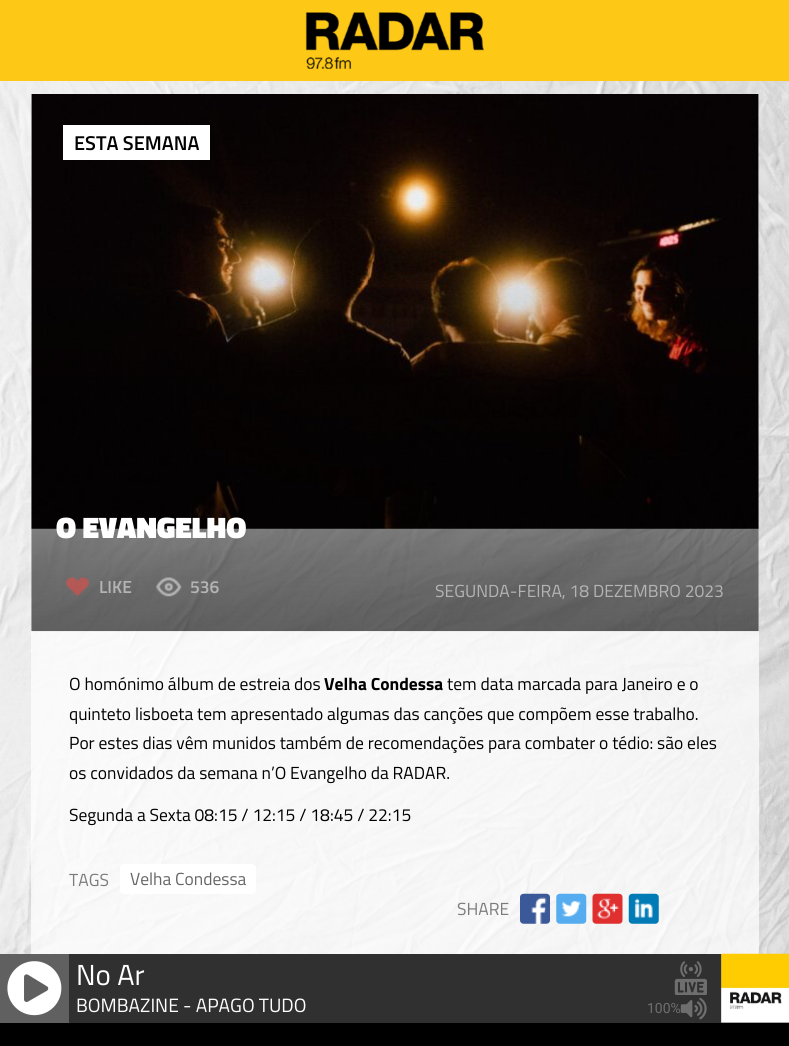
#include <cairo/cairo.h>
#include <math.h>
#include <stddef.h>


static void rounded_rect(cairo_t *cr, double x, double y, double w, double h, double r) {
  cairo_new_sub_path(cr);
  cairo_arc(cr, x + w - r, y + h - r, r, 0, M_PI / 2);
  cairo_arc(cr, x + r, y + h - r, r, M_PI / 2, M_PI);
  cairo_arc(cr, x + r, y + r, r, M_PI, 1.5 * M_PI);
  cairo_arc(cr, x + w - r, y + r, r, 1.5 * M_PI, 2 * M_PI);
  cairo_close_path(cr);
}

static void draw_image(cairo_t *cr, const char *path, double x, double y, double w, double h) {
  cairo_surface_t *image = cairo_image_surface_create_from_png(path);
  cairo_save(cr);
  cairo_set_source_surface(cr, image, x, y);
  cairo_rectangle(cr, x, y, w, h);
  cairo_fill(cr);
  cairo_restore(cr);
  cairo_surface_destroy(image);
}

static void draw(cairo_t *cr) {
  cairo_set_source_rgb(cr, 1, 1, 1);
  cairo_paint(cr);
  cairo_set_source_rgb(cr, 253 / 255.0, 200 / 255.0, 22 / 255.0);
  cairo_rectangle(cr, 0, 0, 789, 81);
  cairo_fill(cr);
  draw_image(cr, "images/1.png", 305, 12, 179, 57);
  draw_image(cr, "images/2.png", 0, 81, 789, 873);
  cairo_set_source_rgba(cr, 1, 1, 1, 0.2);
  cairo_rectangle(cr, 31, 94, 728, 537);
  cairo_fill(cr);
  draw_image(cr, "images/3.png", 31, 94, 728, 435);
  cairo_set_source_rgb(cr, 1, 1, 1);
  cairo_rectangle(cr, 63, 125, 147, 35);
  cairo_fill(cr);
  cairo_set_source_rgba(cr, 1, 1, 1, 0.7);
  cairo_rectangle(cr, 31, 631, 728, 323);
  cairo_fill(cr);
  draw_image(cr, "images/4.png", 31, 244, 728, 388);
  draw_image(cr, "images/5.png", 66, 577, 23, 20);
  draw_image(cr, "images/6.png", 156, 577, 26, 20);
  cairo_set_source_rgb(cr, 1, 1, 1);
  rounded_rect(cr, 120, 864, 136, 30, 4);
  cairo_fill(cr);
  draw_image(cr, "images/7.png", 520, 893, 30, 31);
  draw_image(cr, "images/8.png", 556, 893, 31, 31);
  draw_image(cr, "images/9.png", 592, 893, 31, 31);
  draw_image(cr, "images/10.png", 628, 893, 31, 31);
  cairo_set_source_rgb(cr, 96 / 255.0, 96 / 255.0, 96 / 255.0);
  cairo_rectangle(cr, 0, 954, 69, 69);
  cairo_fill(cr);
  draw_image(cr, "images/11.png", 7, 961, 55, 55);
  cairo_set_source_rgb(cr, 48 / 255.0, 48 / 255.0, 48 / 255.0);
  cairo_rectangle(cr, 69, 954, 652, 69);
  cairo_fill(cr);
  cairo_set_source_rgb(cr, 112 / 255.0, 112 / 255.0, 112 / 255.0);
  cairo_rectangle(cr, 721, 954, 68, 69);
  cairo_fill(cr);
  draw_image(cr, "images/12.png", 721, 953, 68, 70);
  draw_image(cr, "images/13.png", 674, 961, 33, 34);
  draw_image(cr, "images/14.png", 680, 997, 27, 23);
  cairo_set_source_rgb(cr, 0, 0, 0);
  cairo_rectangle(cr, 0, 1023, 789, 23);
  cairo_fill(cr);
  cairo_select_font_face(cr, "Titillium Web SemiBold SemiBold", CAIRO_FONT_SLANT_NORMAL, CAIRO_FONT_WEIGHT_NORMAL);
  cairo_set_font_size(cr, 20);
  cairo_move_to(cr, 74, 150);
  cairo_show_text(cr, "ESTA SEMANA");
  cairo_select_font_face(cr, "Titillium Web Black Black", CAIRO_FONT_SLANT_NORMAL, CAIRO_FONT_WEIGHT_NORMAL);
  cairo_set_font_size(cr, 30);
  cairo_set_source_rgb(cr, 1, 1, 1);
  cairo_move_to(cr, 56, 538);
  cairo_show_text(cr, "O EVANGELHO");
  cairo_select_font_face(cr, "Titillium Web SemiBold SemiBold", CAIRO_FONT_SLANT_NORMAL, CAIRO_FONT_WEIGHT_NORMAL);
  cairo_set_font_size(cr, 17.5);
  cairo_set_source_rgb(cr, 180 / 255.0, 180 / 255.0, 180 / 255.0);
  cairo_move_to(cr, 99, 593);
  cairo_show_text(cr, "LIKE");
  cairo_move_to(cr, 190, 593);
  cairo_show_text(cr, "536");
  cairo_select_font_face(cr, "Titillium Web", CAIRO_FONT_SLANT_NORMAL, CAIRO_FONT_WEIGHT_NORMAL);
  cairo_move_to(cr, 435, 597);
  cairo_show_text(cr, "SEGUNDA-FEIRA, 18 DEZEMBRO 2023");
  cairo_set_source_rgb(cr, 0, 0, 0);
  cairo_move_to(cr, 69, 690);
  cairo_show_text(cr, "O homónimo álbum de estreia dos");
  cairo_select_font_face(cr, "Titillium Web", CAIRO_FONT_SLANT_NORMAL, CAIRO_FONT_WEIGHT_BOLD);
  cairo_move_to(cr, 324, 690);
  cairo_show_text(cr, "Velha Condessa");
  cairo_select_font_face(cr, "Titillium Web", CAIRO_FONT_SLANT_NORMAL, CAIRO_FONT_WEIGHT_NORMAL);
  cairo_move_to(cr, 447, 690);
  cairo_show_text(cr, "tem data marcada para Janeiro e o");
  cairo_move_to(cr, 69, 720);
  cairo_show_text(cr, "quinteto lisboeta tem apresentado algumas das canções que compõem esse trabalho.");
  cairo_move_to(cr, 69, 749);
  cairo_show_text(cr, "Por estes dias vêm munidos também de recomendações para combater o tédio: são eles");
  cairo_move_to(cr, 69, 779);
  cairo_show_text(cr, "os convidados da semana n’O Evangelho da RADAR.");
  cairo_move_to(cr, 69, 821);
  cairo_show_text(cr, "Segunda a Sexta 08:15 / 12:15 / 18:45 / 22:15");
  cairo_set_source_rgb(cr, 124 / 255.0, 124 / 255.0, 124 / 255.0);
  cairo_move_to(cr, 69, 886);
  cairo_show_text(cr, "TAGS");
  cairo_set_source_rgb(cr, 102 / 255.0, 102 / 255.0, 102 / 255.0);
  cairo_move_to(cr, 130, 885);
  cairo_show_text(cr, "Velha Condessa");
  cairo_set_source_rgb(cr, 124 / 255.0, 124 / 255.0, 124 / 255.0);
  cairo_move_to(cr, 457, 915);
  cairo_show_text(cr, "SHARE");
  cairo_set_font_size(cr, 29);
  cairo_set_source_rgb(cr, 1, 1, 1);
  cairo_move_to(cr, 76, 985);
  cairo_show_text(cr, "No Ar");
  cairo_set_font_size(cr, 19.25);
  cairo_move_to(cr, 76, 1012);
  cairo_show_text(cr, "BOMBAZINE - APAGO TUDO");
  cairo_select_font_face(cr, "Roboto", CAIRO_FONT_SLANT_NORMAL, CAIRO_FONT_WEIGHT_NORMAL);
  cairo_set_font_size(cr, 14);
  cairo_set_source_rgb(cr, 110 / 255.0, 110 / 255.0, 110 / 255.0);
  cairo_move_to(cr, 647, 1013);
  cairo_show_text(cr, "100%");
}

int main(void) {
  cairo_surface_t *surface = cairo_image_surface_create(CAIRO_FORMAT_RGB24, 789, 1046);
  cairo_t *cr = cairo_create(surface);
  cairo_font_options_t *options = cairo_font_options_create();
  cairo_font_options_set_hint_metrics(options, CAIRO_HINT_METRICS_OFF);
  cairo_font_options_set_hint_style(options, CAIRO_HINT_STYLE_NONE);
  cairo_set_font_options(cr, options);
  cairo_set_miter_limit(cr, 4);
  draw(cr);
  cairo_surface_write_to_png(surface, "out.png");
  cairo_font_options_destroy(options);
  cairo_destroy(cr);
  cairo_surface_destroy(surface);
  return 0;
}
